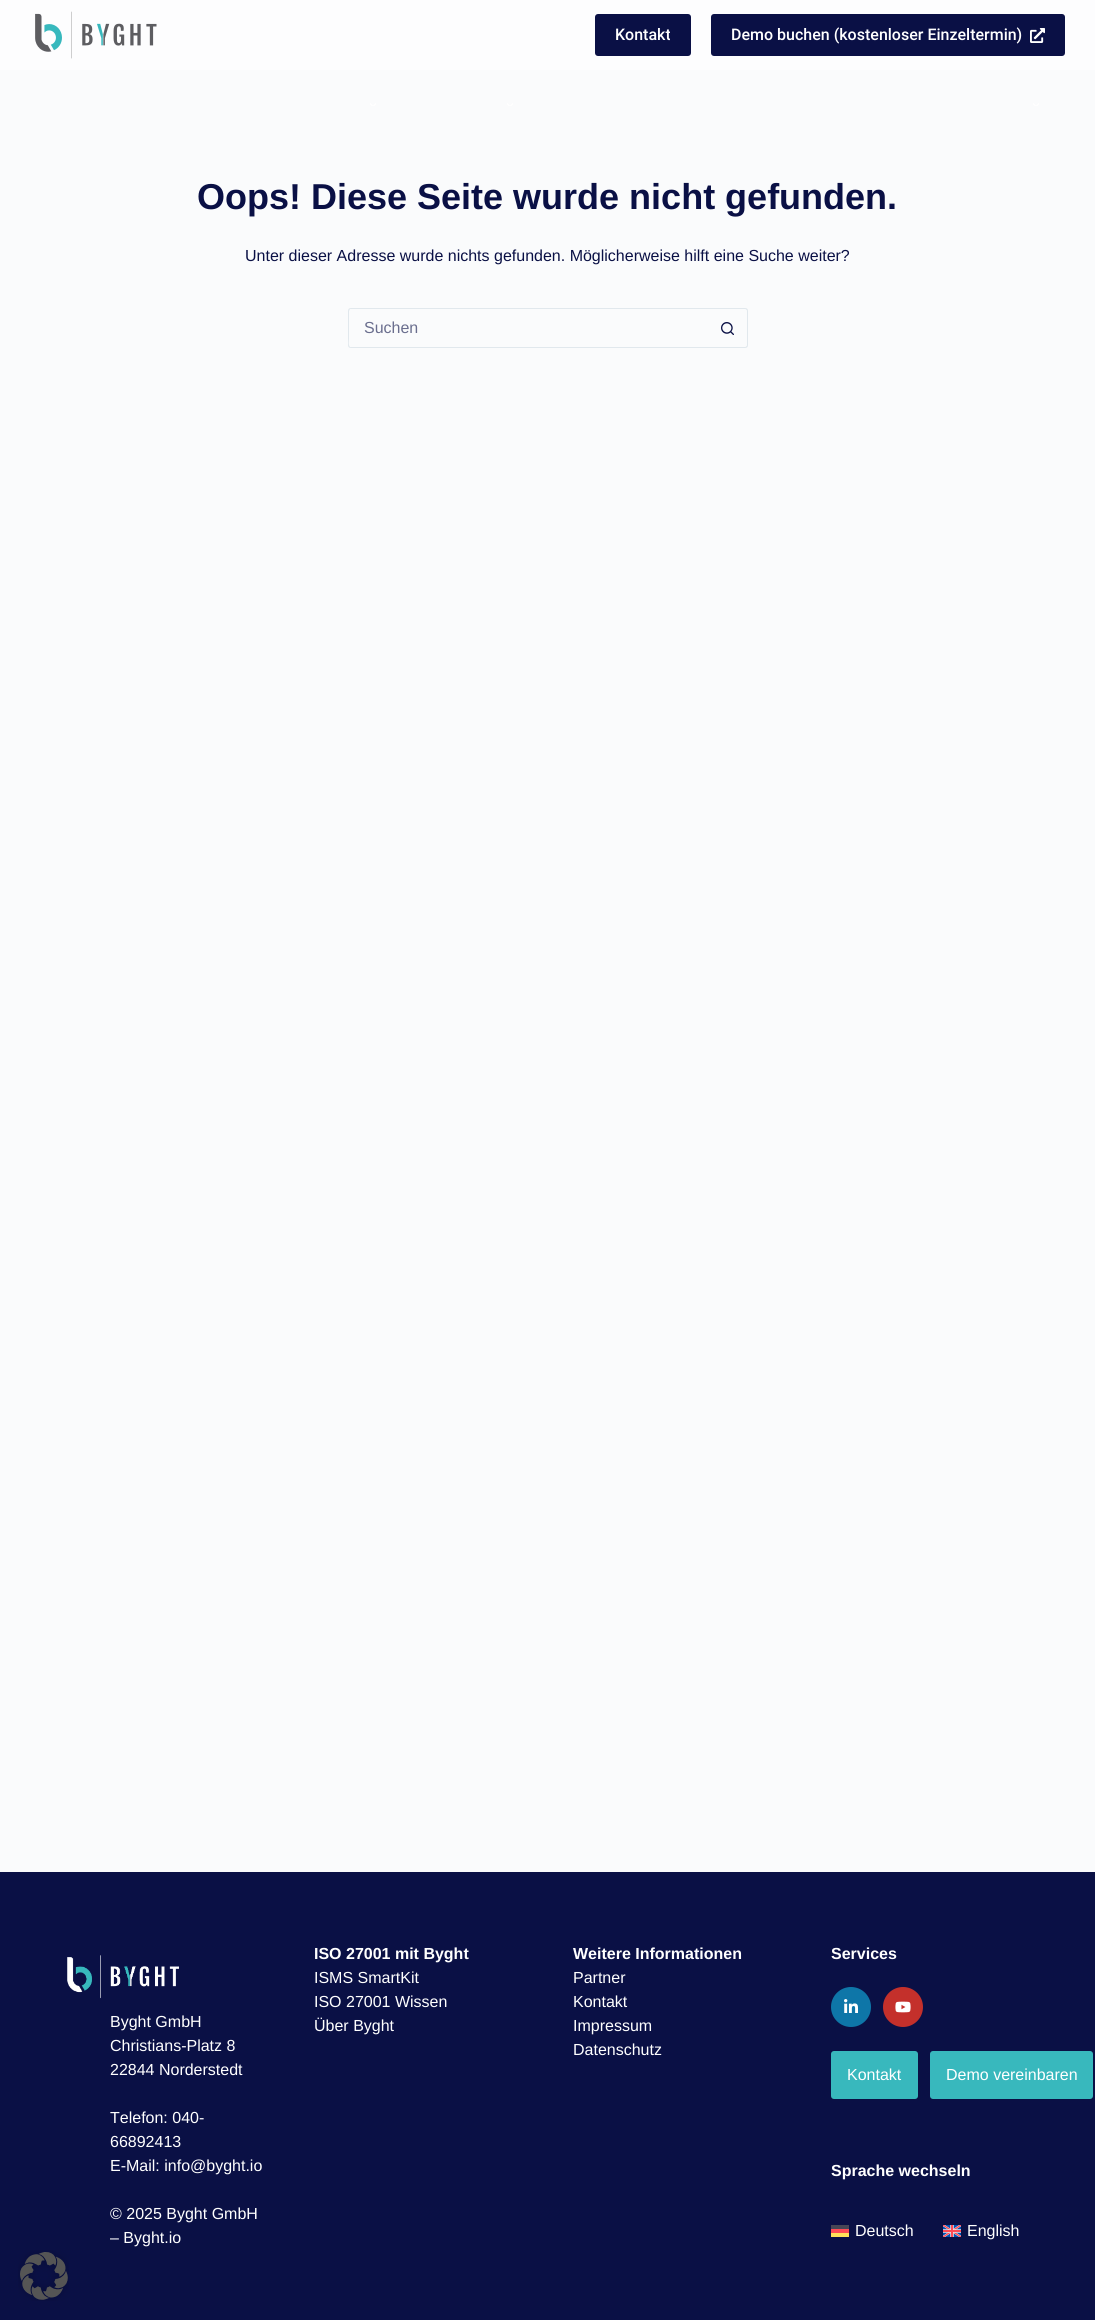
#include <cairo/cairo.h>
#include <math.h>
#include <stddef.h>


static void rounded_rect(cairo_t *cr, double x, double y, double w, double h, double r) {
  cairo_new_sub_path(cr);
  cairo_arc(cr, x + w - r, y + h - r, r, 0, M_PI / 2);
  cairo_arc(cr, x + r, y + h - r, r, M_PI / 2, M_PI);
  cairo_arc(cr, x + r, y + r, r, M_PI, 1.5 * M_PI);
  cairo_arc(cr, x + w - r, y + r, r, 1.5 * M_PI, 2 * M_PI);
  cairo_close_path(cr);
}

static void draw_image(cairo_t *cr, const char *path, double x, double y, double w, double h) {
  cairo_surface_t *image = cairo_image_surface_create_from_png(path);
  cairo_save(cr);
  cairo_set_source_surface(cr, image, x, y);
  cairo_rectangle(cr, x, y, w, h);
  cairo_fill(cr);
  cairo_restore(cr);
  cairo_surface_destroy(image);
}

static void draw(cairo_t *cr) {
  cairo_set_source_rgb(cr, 250 / 255.0, 251 / 255.0, 252 / 255.0);
  cairo_paint(cr);
  cairo_set_source_rgb(cr, 253 / 255.0, 253 / 255.0, 254 / 255.0);
  cairo_rectangle(cr, 0, 0, 1095, 70);
  cairo_fill(cr);
  draw_image(cr, "images/1.png", 35, 11, 122, 48);
  cairo_set_source_rgb(cr, 10 / 255.0, 16 / 255.0, 69 / 255.0);
  rounded_rect(cr, 595, 14, 96, 42, 3);
  cairo_fill(cr);
  rounded_rect(cr, 711, 14, 354, 42, 3);
  cairo_fill(cr);
  draw_image(cr, "images/2.png", 1030, 28, 15, 15);
  draw_image(cr, "images/3.png", 370, 103, 6, 3);
  draw_image(cr, "images/3.png", 507, 103, 6, 3);
  draw_image(cr, "images/3.png", 1033, 103, 6, 3);
  cairo_set_source_rgb(cr, 225 / 255.0, 232 / 255.0, 237 / 255.0);
  cairo_set_fill_rule(cr, CAIRO_FILL_RULE_EVEN_ODD);
  cairo_new_path(cr);
  cairo_move_to(cr, 351, 308);
  cairo_line_to(cr, 708, 308);
  cairo_line_to(cr, 708, 348);
  cairo_line_to(cr, 351, 348);
  cairo_curve_to(cr, 349, 348, 348, 347, 348, 345);
  cairo_line_to(cr, 348, 311);
  cairo_curve_to(cr, 348, 309, 349, 308, 351, 308);
  cairo_close_path(cr);
  cairo_move_to(cr, 351, 309);
  cairo_line_to(cr, 708, 309);
  cairo_line_to(cr, 708, 347);
  cairo_line_to(cr, 350, 347);
  cairo_curve_to(cr, 348, 345, 349, 340, 349, 339);
  cairo_line_to(cr, 349, 311);
  cairo_line_to(cr, 350, 309);
  cairo_close_path(cr);
  cairo_fill(cr);
  cairo_new_path(cr);
  cairo_move_to(cr, 708, 308);
  cairo_line_to(cr, 745, 308);
  cairo_curve_to(cr, 747, 308, 748, 309, 748, 311);
  cairo_line_to(cr, 748, 345);
  cairo_curve_to(cr, 748, 347, 747, 348, 745, 348);
  cairo_line_to(cr, 708, 348);
  cairo_close_path(cr);
  cairo_move_to(cr, 708, 309);
  cairo_line_to(cr, 745, 309);
  cairo_curve_to(cr, 746, 309, 747, 310, 747, 311);
  cairo_line_to(cr, 747, 345);
  cairo_curve_to(cr, 747, 346, 746, 347, 745, 347);
  cairo_line_to(cr, 708, 347);
  cairo_close_path(cr);
  cairo_fill(cr);
  draw_image(cr, "images/4.png", 721, 322, 13, 13);
  cairo_new_path(cr);
  cairo_move_to(cr, 722, 333.5);
  cairo_curve_to(cr, 719, 331, 718.5, 326.5, 721.5, 323);
  cairo_set_source_rgb(cr, 250 / 255.0, 251 / 255.0, 252 / 255.0);
  cairo_set_line_width(cr, 1.5);
  cairo_set_line_cap(cr, CAIRO_LINE_CAP_ROUND);
  cairo_stroke(cr);
  cairo_set_source_rgb(cr, 10 / 255.0, 16 / 255.0, 69 / 255.0);
  cairo_rectangle(cr, 0, 1872, 1095, 448);
  cairo_fill(cr);
  draw_image(cr, "images/5.png", 67, 1955, 112, 44);
  cairo_set_source_rgb(cr, 14 / 255.0, 118 / 255.0, 168 / 255.0);
  cairo_arc(cr, 851, 2007, 20, 0, 2 * M_PI);
  cairo_fill(cr);
  draw_image(cr, "images/6.png", 844, 1999, 14, 14);
  cairo_set_source_rgb(cr, 196 / 255.0, 48 / 255.0, 43 / 255.0);
  cairo_arc(cr, 903, 2007, 20, 0, 2 * M_PI);
  cairo_fill(cr);
  draw_image(cr, "images/7.png", 895, 2001, 16, 12);
  cairo_set_source_rgb(cr, 56 / 255.0, 184 / 255.0, 189 / 255.0);
  rounded_rect(cr, 831, 2051, 87, 48, 3);
  cairo_fill(cr);
  rounded_rect(cr, 930, 2051, 163, 48, 3);
  cairo_fill(cr);
  cairo_set_source_rgb(cr, 1, 75 / 255.0, 85 / 255.0);
  cairo_rectangle(cr, 831, 2229, 18, 4);
  cairo_fill(cr);
  cairo_set_source_rgb(cr, 1, 225 / 255.0, 90 / 255.0);
  cairo_rectangle(cr, 831, 2233, 18, 4);
  cairo_fill(cr);
  cairo_set_source_rgb(cr, 70 / 255.0, 70 / 255.0, 85 / 255.0);
  cairo_rectangle(cr, 831, 2225, 18, 4);
  cairo_fill(cr);
  draw_image(cr, "images/8.png", 943, 2225, 18, 12);
  draw_image(cr, "images/9.png", 18, 2250, 51, 51);
  cairo_select_font_face(cr, "Roboto Medium", CAIRO_FONT_SLANT_NORMAL, CAIRO_FONT_WEIGHT_NORMAL);
  cairo_set_font_size(cr, 16);
  cairo_set_source_rgb(cr, 1, 1, 1);
  cairo_move_to(cr, 615, 40);
  cairo_show_text(cr, "Kontakt");
  cairo_move_to(cr, 731, 40);
  cairo_show_text(cr, "Demo buchen (kostenloser Einzeltermin)");
  cairo_select_font_face(cr, "Liberation Sans", CAIRO_FONT_SLANT_NORMAL, CAIRO_FONT_WEIGHT_BOLD);
  cairo_set_font_size(cr, 36);
  cairo_set_source_rgb(cr, 10 / 255.0, 16 / 255.0, 69 / 255.0);
  cairo_move_to(cr, 197, 209);
  cairo_show_text(cr, "Oops! Diese Seite wurde nicht gefunden.");
  cairo_select_font_face(cr, "Liberation Sans", CAIRO_FONT_SLANT_NORMAL, CAIRO_FONT_WEIGHT_NORMAL);
  cairo_set_font_size(cr, 16);
  cairo_move_to(cr, 245, 261);
  cairo_show_text(cr, "Unter dieser Adresse wurde nichts gefunden. Möglicherweise hilft eine Suche weiter?");
  cairo_set_source_rgb(cr, 106 / 255.0, 110 / 255.0, 142 / 255.0);
  cairo_move_to(cr, 364, 333);
  cairo_show_text(cr, "Suchen");
  cairo_set_source_rgb(cr, 1, 1, 1);
  cairo_move_to(cr, 110, 2027);
  cairo_show_text(cr, "Byght GmbH");
  cairo_move_to(cr, 110, 2051);
  cairo_show_text(cr, "Christians-Platz 8");
  cairo_move_to(cr, 110, 2075);
  cairo_show_text(cr, "22844 Norderstedt");
  cairo_move_to(cr, 110, 2123);
  cairo_show_text(cr, "Telefon: 040-");
  cairo_move_to(cr, 110, 2147);
  cairo_show_text(cr, "66892413");
  cairo_move_to(cr, 110, 2171);
  cairo_show_text(cr, "E-Mail: info@byght.io");
  cairo_move_to(cr, 110, 2219);
  cairo_show_text(cr, "© 2025 Byght GmbH");
  cairo_move_to(cr, 110, 2243);
  cairo_show_text(cr, "– Byght.io");
  cairo_select_font_face(cr, "Liberation Sans", CAIRO_FONT_SLANT_NORMAL, CAIRO_FONT_WEIGHT_BOLD);
  cairo_move_to(cr, 314, 1959);
  cairo_show_text(cr, "ISO 27001 mit Byght");
  cairo_select_font_face(cr, "Liberation Sans", CAIRO_FONT_SLANT_NORMAL, CAIRO_FONT_WEIGHT_NORMAL);
  cairo_move_to(cr, 314, 1983);
  cairo_show_text(cr, "ISMS SmartKit");
  cairo_move_to(cr, 314, 2007);
  cairo_show_text(cr, "ISO 27001 Wissen");
  cairo_move_to(cr, 314, 2031);
  cairo_show_text(cr, "Über Byght");
  cairo_select_font_face(cr, "Liberation Sans", CAIRO_FONT_SLANT_NORMAL, CAIRO_FONT_WEIGHT_BOLD);
  cairo_move_to(cr, 573, 1959);
  cairo_show_text(cr, "Weitere Informationen");
  cairo_select_font_face(cr, "Liberation Sans", CAIRO_FONT_SLANT_NORMAL, CAIRO_FONT_WEIGHT_NORMAL);
  cairo_move_to(cr, 573, 1983);
  cairo_show_text(cr, "Partner");
  cairo_move_to(cr, 573, 2007);
  cairo_show_text(cr, "Kontakt");
  cairo_move_to(cr, 573, 2031);
  cairo_show_text(cr, "Impressum");
  cairo_move_to(cr, 573, 2055);
  cairo_show_text(cr, "Datenschutz");
  cairo_select_font_face(cr, "Liberation Sans", CAIRO_FONT_SLANT_NORMAL, CAIRO_FONT_WEIGHT_BOLD);
  cairo_move_to(cr, 831, 1959);
  cairo_show_text(cr, "Services");
  cairo_select_font_face(cr, "Liberation Sans", CAIRO_FONT_SLANT_NORMAL, CAIRO_FONT_WEIGHT_NORMAL);
  cairo_move_to(cr, 847, 2080);
  cairo_show_text(cr, "Kontakt");
  cairo_move_to(cr, 946, 2080);
  cairo_show_text(cr, "Demo vereinbaren");
  cairo_select_font_face(cr, "Liberation Sans", CAIRO_FONT_SLANT_NORMAL, CAIRO_FONT_WEIGHT_BOLD);
  cairo_move_to(cr, 831, 2176);
  cairo_show_text(cr, "Sprache wechseln");
  cairo_select_font_face(cr, "Liberation Sans", CAIRO_FONT_SLANT_NORMAL, CAIRO_FONT_WEIGHT_NORMAL);
  cairo_move_to(cr, 855, 2236);
  cairo_show_text(cr, "Deutsch");
  cairo_move_to(cr, 967, 2236);
  cairo_show_text(cr, "English");
}

int main(void) {
  cairo_surface_t *surface = cairo_image_surface_create(CAIRO_FORMAT_RGB24, 1095, 2320);
  cairo_t *cr = cairo_create(surface);
  cairo_font_options_t *options = cairo_font_options_create();
  cairo_font_options_set_hint_metrics(options, CAIRO_HINT_METRICS_OFF);
  cairo_font_options_set_hint_style(options, CAIRO_HINT_STYLE_NONE);
  cairo_set_font_options(cr, options);
  cairo_set_miter_limit(cr, 4);
  draw(cr);
  cairo_surface_write_to_png(surface, "out.png");
  cairo_font_options_destroy(options);
  cairo_destroy(cr);
  cairo_surface_destroy(surface);
  return 0;
}
